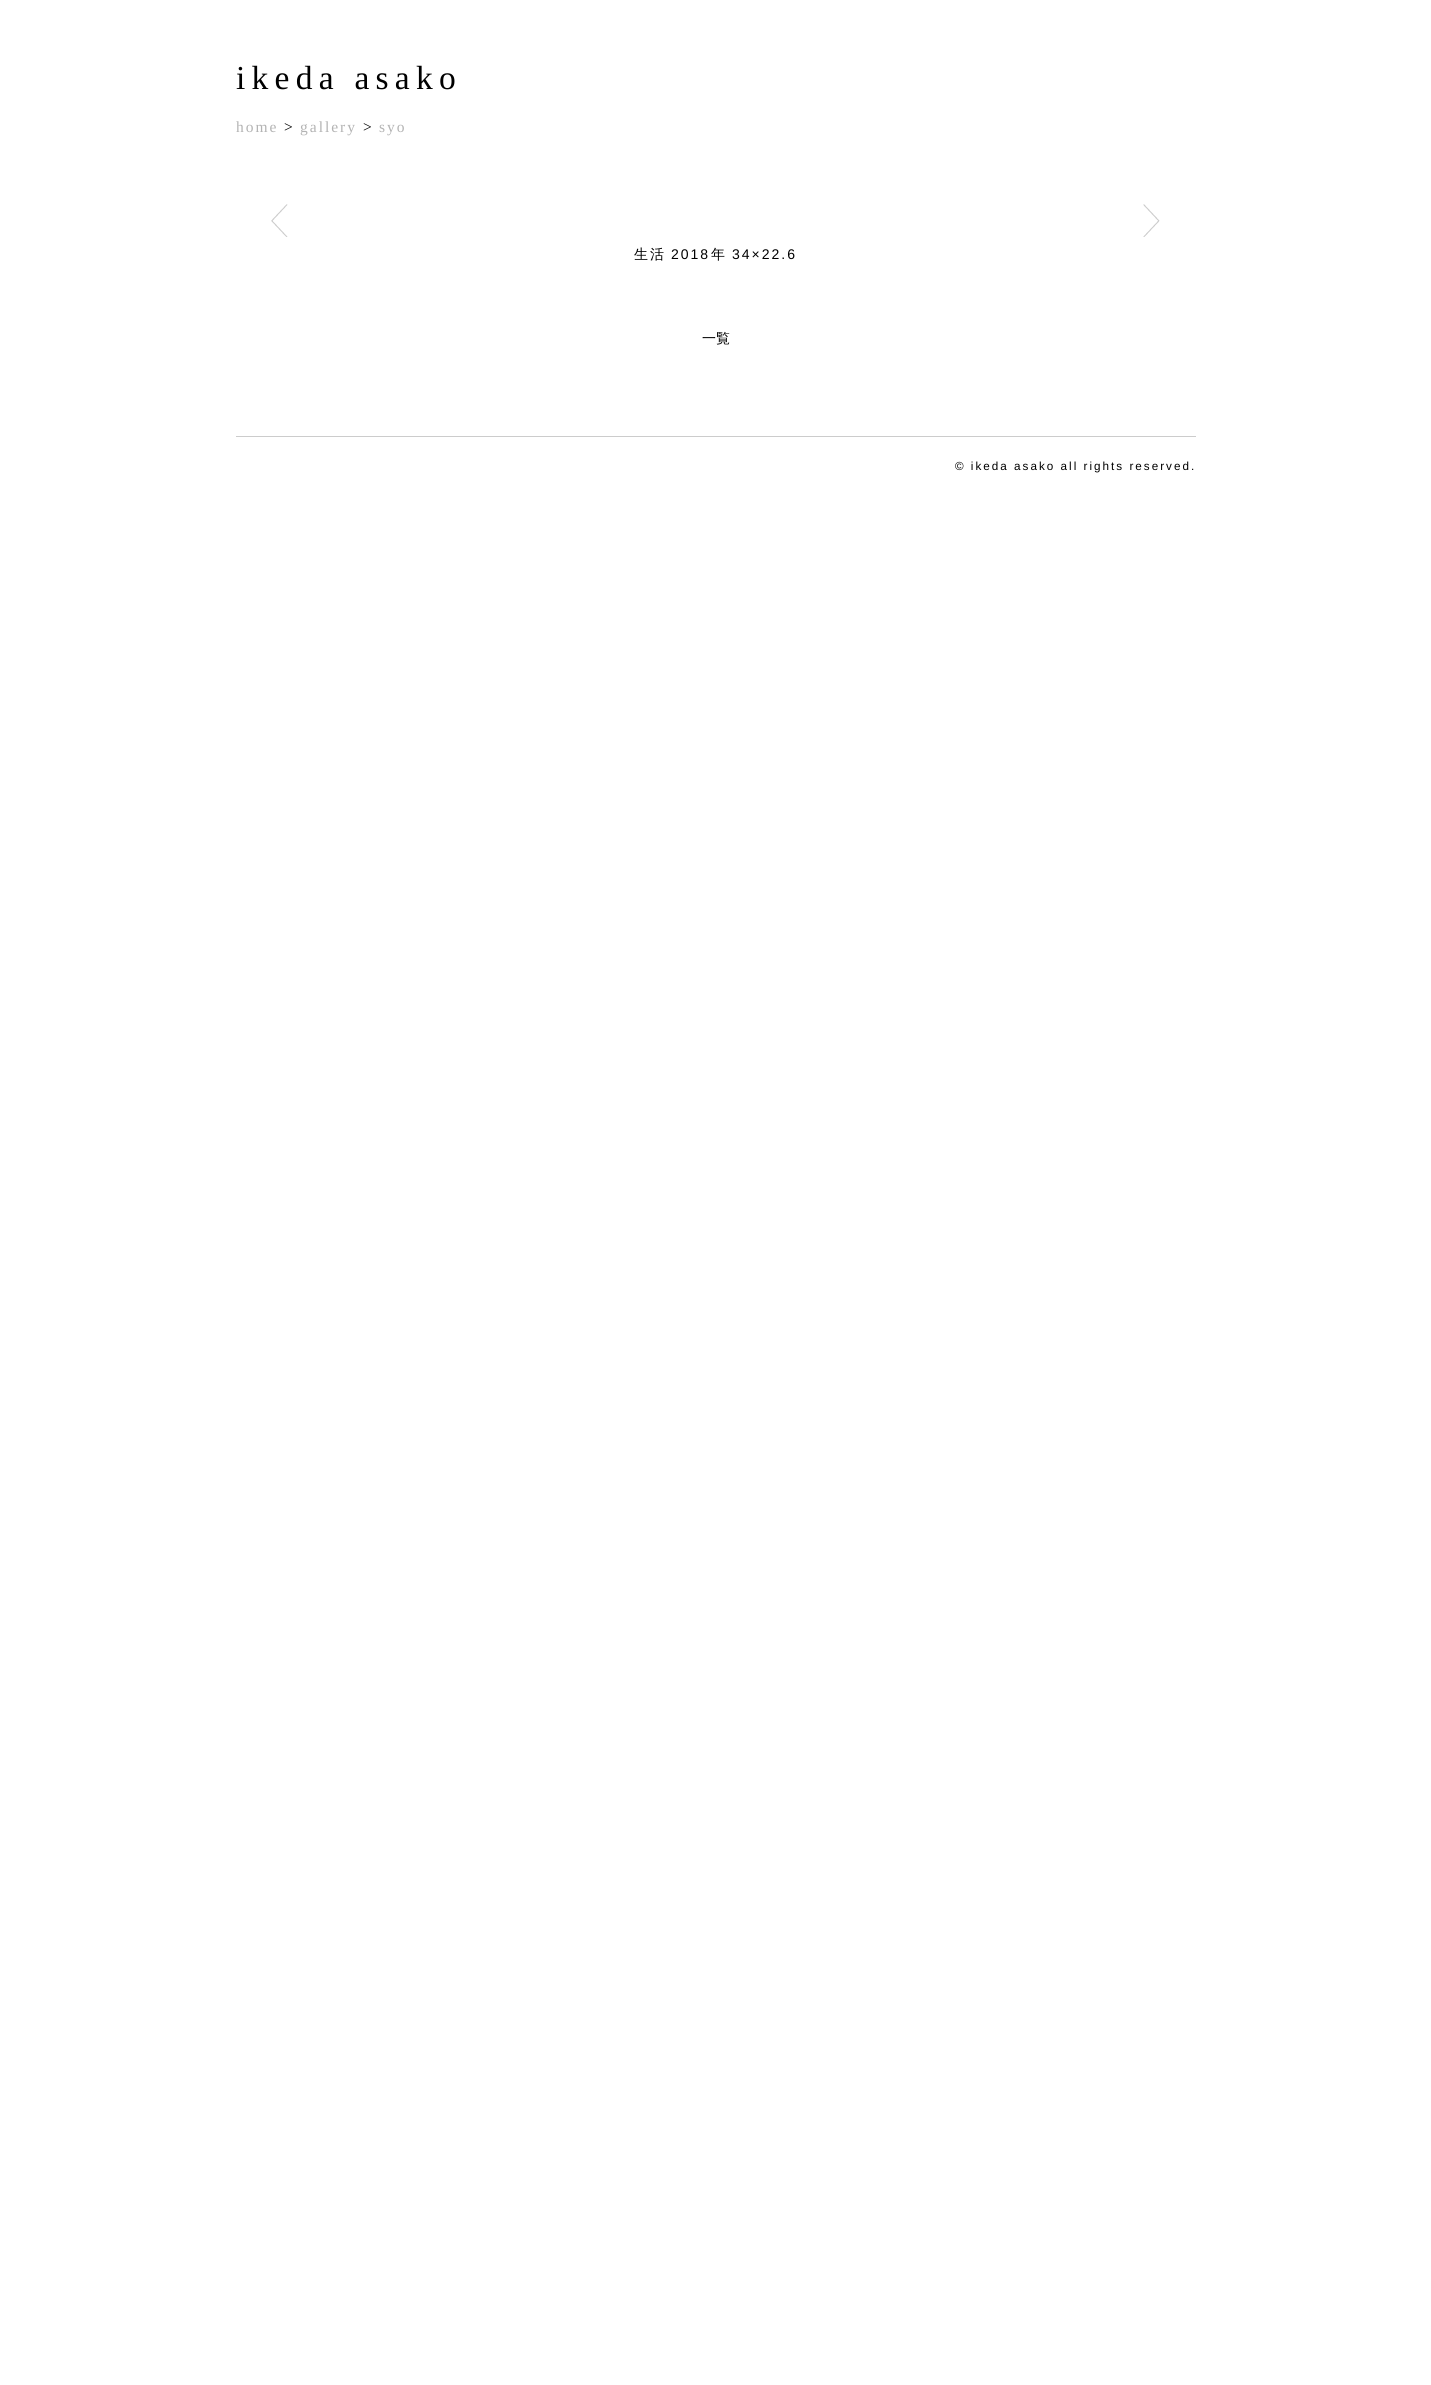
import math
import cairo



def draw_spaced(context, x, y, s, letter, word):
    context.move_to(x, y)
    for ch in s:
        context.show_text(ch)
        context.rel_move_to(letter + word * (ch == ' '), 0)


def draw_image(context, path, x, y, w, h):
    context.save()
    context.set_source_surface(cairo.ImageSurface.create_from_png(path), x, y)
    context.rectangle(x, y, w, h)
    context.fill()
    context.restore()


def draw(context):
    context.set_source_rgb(1, 1, 1)
    context.paint()
    draw_image(context, "images/1.png", 271, 204, 17, 33)
    draw_image(context, "images/2.png", 1143, 204, 17, 33)
    context.set_source_rgb(204 / 255, 204 / 255, 204 / 255)
    context.rectangle(236, 436, 960, 1)
    context.fill()
    context.select_font_face("Liberation Serif")
    context.set_font_size(33.5)
    context.set_source_rgb(0, 0, 0)
    draw_spaced(context, 236, 89, "ikeda asako", 6.25, 0)
    context.set_font_size(15.5)
    context.set_source_rgb(179 / 255, 179 / 255, 179 / 255)
    draw_spaced(context, 236, 132, "home", 2, 0)
    context.set_source_rgb(0, 0, 0)
    draw_spaced(context, 284, 132, ">", 2, 0)
    context.set_source_rgb(179 / 255, 179 / 255, 179 / 255)
    draw_spaced(context, 300, 132, "gallery", 2, 0)
    context.set_source_rgb(0, 0, 0)
    draw_spaced(context, 363, 132, ">", 2, 0)
    context.set_source_rgb(179 / 255, 179 / 255, 179 / 255)
    draw_spaced(context, 379, 132, "syo", 2, 0)
    context.select_font_face("WenQuanYi Zen Hei Medium")
    context.set_font_size(14)
    context.set_source_rgb(0, 0, 0)
    draw_spaced(context, 634, 259, "生活", 2, 0)
    context.select_font_face("Liberation Sans")
    draw_spaced(context, 671, 259, "2018", 2, 0)
    context.select_font_face("WenQuanYi Zen Hei Medium")
    draw_spaced(context, 711, 259, "年", 2, 0)
    context.select_font_face("Liberation Sans")
    draw_spaced(context, 732, 259, "34×22.6", 2, 0)
    context.select_font_face("WenQuanYi Zen Hei Medium")
    context.move_to(702, 343)
    context.show_text("一覧")
    context.select_font_face("Liberation Sans")
    context.set_font_size(11.7)
    draw_spaced(context, 955, 470, "© ikeda asako all rights reserved.", 2, 0)


surface = cairo.ImageSurface(cairo.Format.RGB24, 1431, 2385)
context = cairo.Context(surface)
options = cairo.FontOptions()
options.set_hint_metrics(cairo.HintMetrics.OFF)
options.set_hint_style(cairo.HintStyle.NONE)
context.set_font_options(options)
context.set_miter_limit(4)
draw(context)
surface.write_to_png("out.png")
